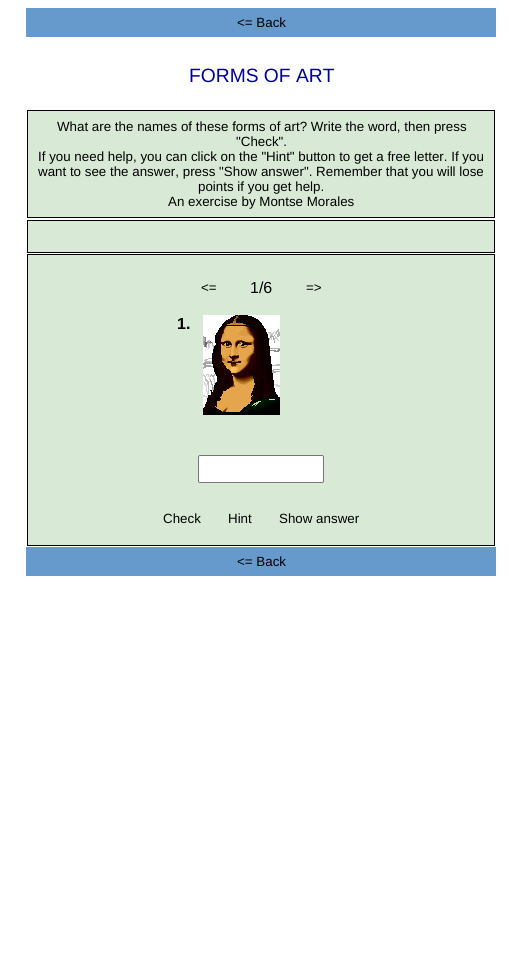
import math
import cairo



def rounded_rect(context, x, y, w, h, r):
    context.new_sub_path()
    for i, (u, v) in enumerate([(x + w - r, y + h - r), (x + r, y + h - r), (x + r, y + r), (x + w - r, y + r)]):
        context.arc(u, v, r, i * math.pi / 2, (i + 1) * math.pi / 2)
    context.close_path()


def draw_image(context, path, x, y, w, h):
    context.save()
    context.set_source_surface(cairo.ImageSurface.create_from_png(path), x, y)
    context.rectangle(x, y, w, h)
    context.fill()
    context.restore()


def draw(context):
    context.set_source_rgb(1, 1, 1)
    context.paint()
    context.set_source_rgb(102 / 255, 153 / 255, 204 / 255)
    context.rectangle(26, 8, 470, 29)
    context.fill()
    context.set_source_rgb(216 / 255, 233 / 255, 214 / 255)
    context.rectangle(27.5, 110.5, 467, 107)
    context.fill_preserve()
    context.set_source_rgb(0, 0, 0)
    context.set_line_width(1)
    context.stroke()
    context.set_source_rgb(216 / 255, 233 / 255, 214 / 255)
    context.rectangle(27.5, 220.5, 467, 32)
    context.fill_preserve()
    context.set_source_rgb(0, 0, 0)
    context.stroke()
    context.set_source_rgb(216 / 255, 233 / 255, 214 / 255)
    context.rectangle(27.5, 254.5, 467, 291)
    context.fill_preserve()
    context.set_source_rgb(0, 0, 0)
    context.stroke()
    draw_image(context, "images/1.png", 203, 315, 77, 100)
    context.set_source_rgb(1, 1, 1)
    rounded_rect(context, 198.5, 455.5, 125, 27, 1.5)
    context.fill_preserve()
    context.set_source_rgb(118 / 255, 118 / 255, 118 / 255)
    context.stroke()
    context.set_source_rgb(102 / 255, 153 / 255, 204 / 255)
    context.rectangle(26, 547, 470, 29)
    context.fill()
    context.select_font_face("Liberation Sans")
    context.set_font_size(13.35)
    context.set_source_rgb(0, 0, 0)
    context.move_to(237, 27)
    context.show_text("<= Back")
    context.set_font_size(19.25)
    context.set_source_rgb(0, 0, 153 / 255)
    context.move_to(189, 82)
    context.show_text("FORMS OF ART")
    context.set_font_size(13.35)
    context.set_source_rgb(0, 0, 0)
    context.move_to(57, 131)
    context.show_text("What are the names of these forms of art? Write the word, then press")
    context.move_to(236, 146)
    context.show_text("\"Check\".")
    context.move_to(38, 161)
    context.show_text("If you need help, you can click on the \"Hint\" button to get a free letter. If you")
    context.move_to(38, 176)
    context.show_text("want to see the answer, press \"Show answer\". Remember that you will lose")
    context.move_to(198, 191)
    context.show_text("points if you get help.")
    context.move_to(168, 206)
    context.show_text("An exercise by Montse Morales")
    context.move_to(201, 292)
    context.show_text("<=")
    context.set_font_size(16)
    context.move_to(250, 293)
    context.show_text("1/6")
    context.set_font_size(13.35)
    context.move_to(306, 292)
    context.show_text("=>")
    context.select_font_face("Liberation Sans", cairo.FontSlant.NORMAL, cairo.FontWeight.BOLD)
    context.set_font_size(16)
    context.move_to(177, 329)
    context.show_text("1.")
    context.select_font_face("Liberation Sans")
    context.set_font_size(13.35)
    context.move_to(163, 523)
    context.show_text("Check")
    context.move_to(228, 523)
    context.show_text("Hint")
    context.move_to(279, 523)
    context.show_text("Show answer")
    context.move_to(237, 566)
    context.show_text("<= Back")


surface = cairo.ImageSurface(cairo.Format.RGB24, 522, 972)
context = cairo.Context(surface)
options = cairo.FontOptions()
options.set_hint_metrics(cairo.HintMetrics.OFF)
options.set_hint_style(cairo.HintStyle.NONE)
context.set_font_options(options)
context.set_miter_limit(4)
draw(context)
surface.write_to_png("out.png")
